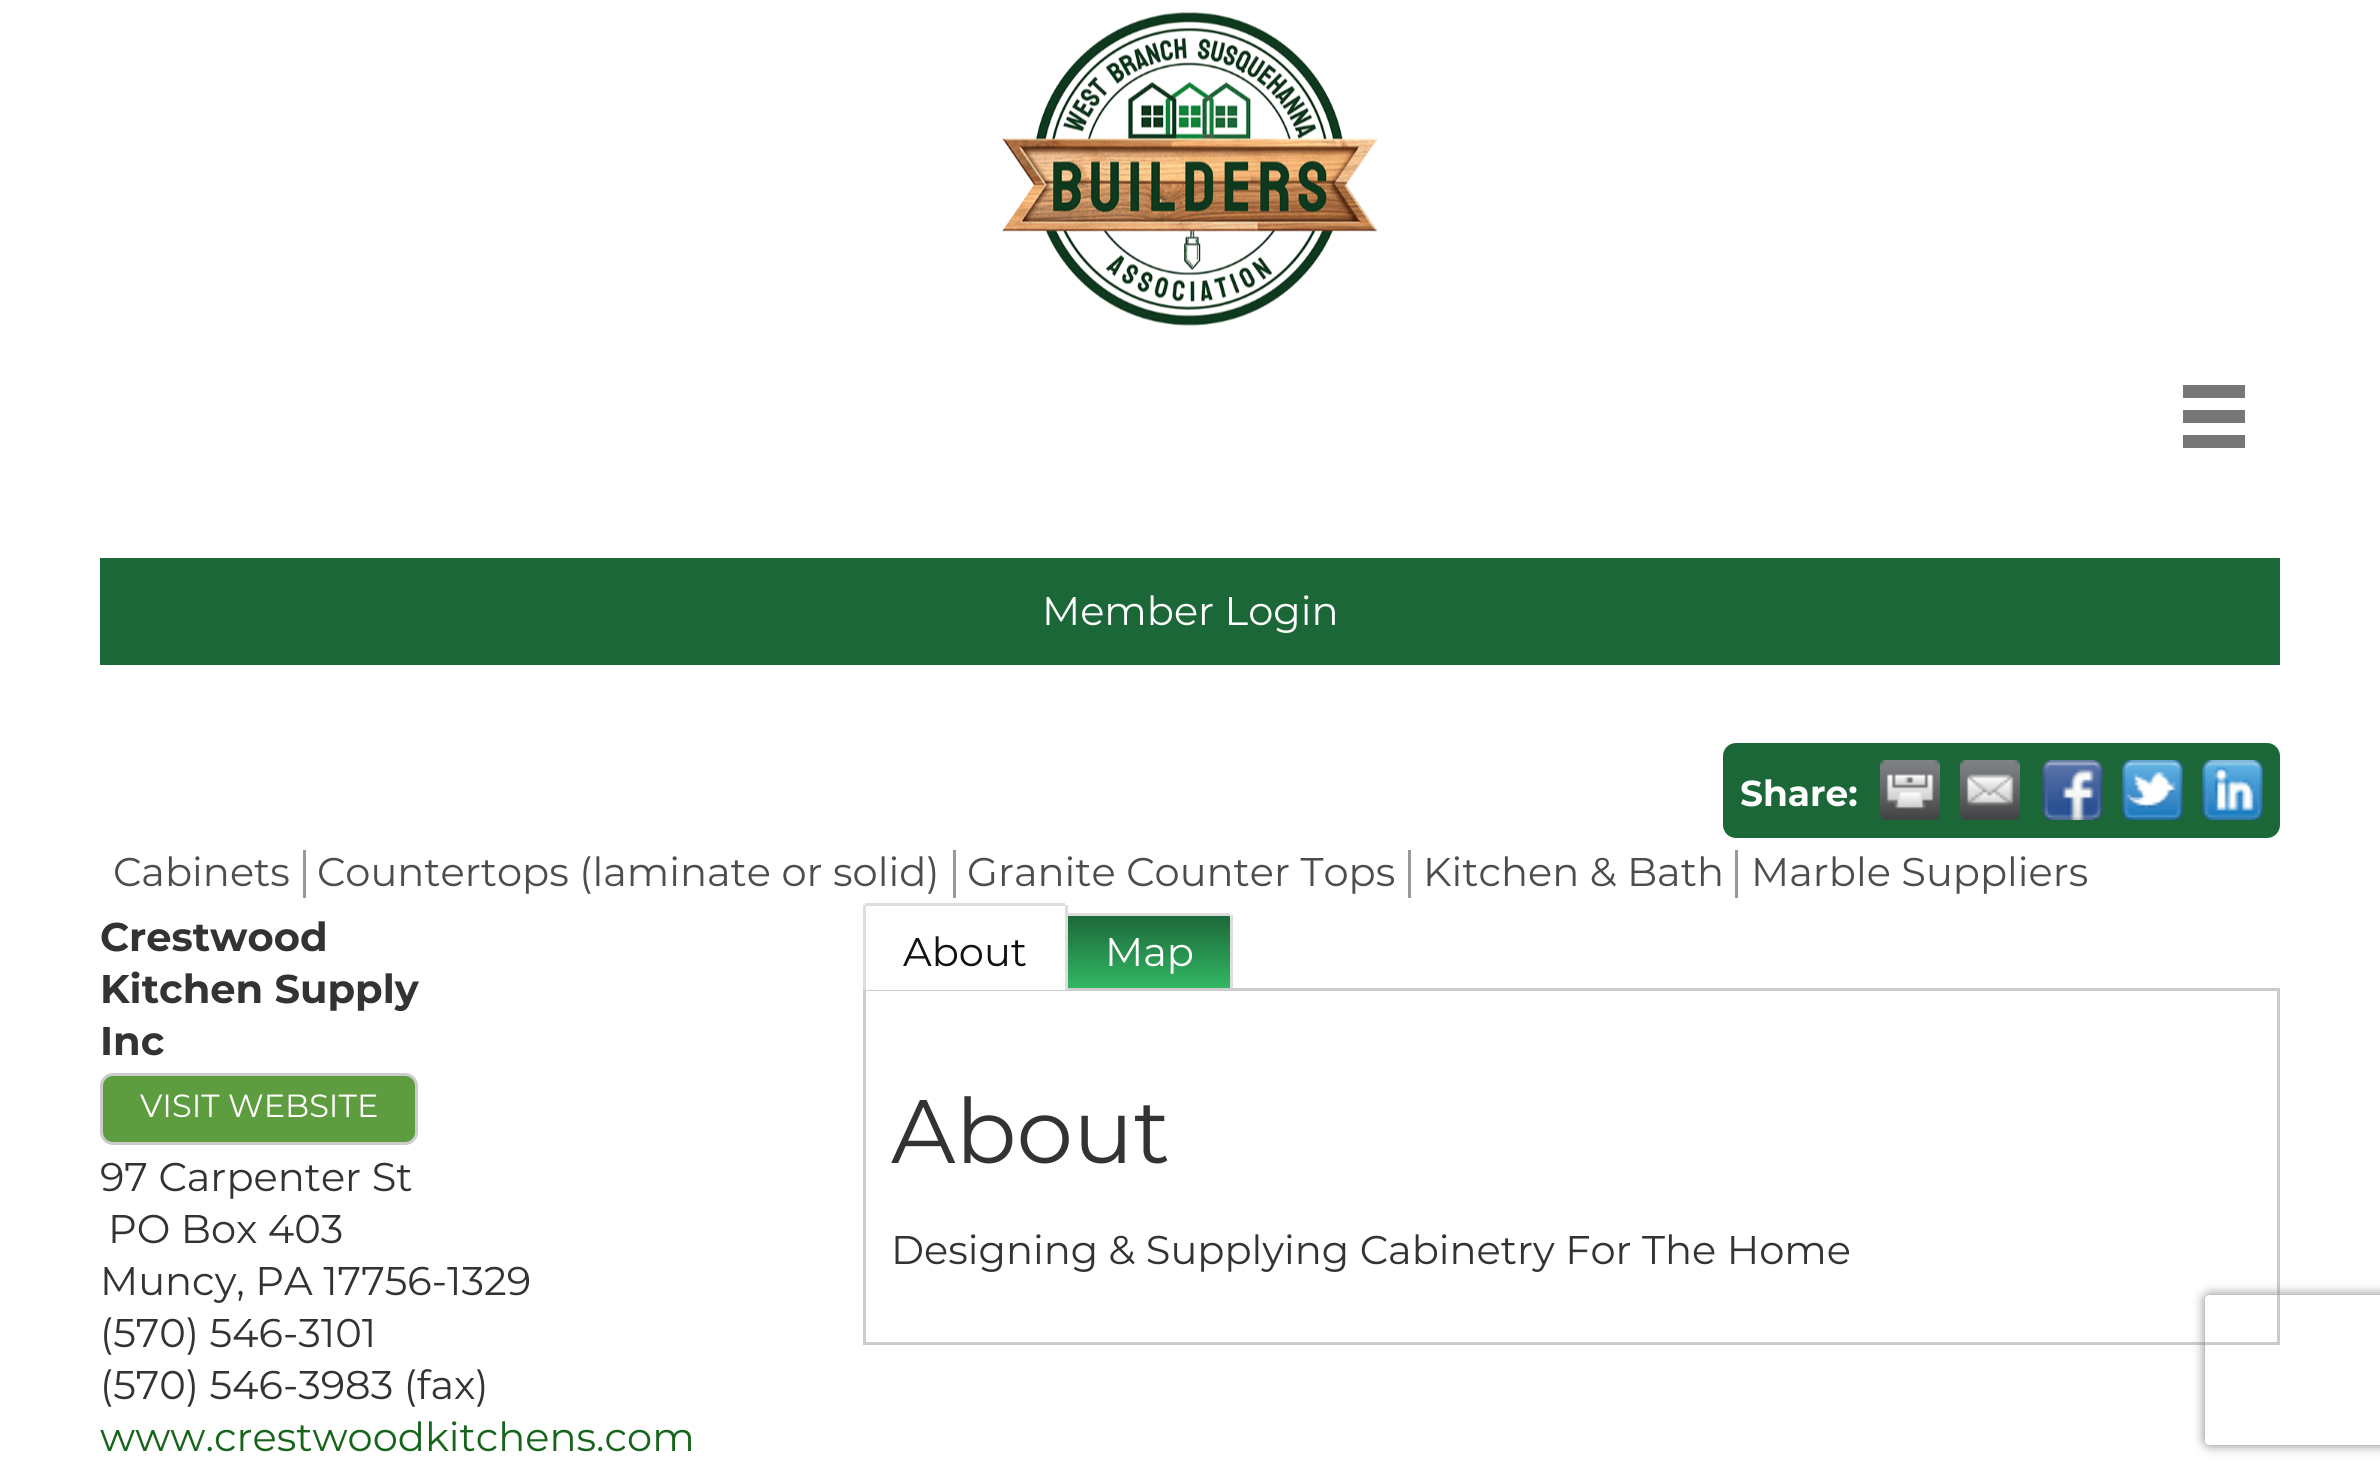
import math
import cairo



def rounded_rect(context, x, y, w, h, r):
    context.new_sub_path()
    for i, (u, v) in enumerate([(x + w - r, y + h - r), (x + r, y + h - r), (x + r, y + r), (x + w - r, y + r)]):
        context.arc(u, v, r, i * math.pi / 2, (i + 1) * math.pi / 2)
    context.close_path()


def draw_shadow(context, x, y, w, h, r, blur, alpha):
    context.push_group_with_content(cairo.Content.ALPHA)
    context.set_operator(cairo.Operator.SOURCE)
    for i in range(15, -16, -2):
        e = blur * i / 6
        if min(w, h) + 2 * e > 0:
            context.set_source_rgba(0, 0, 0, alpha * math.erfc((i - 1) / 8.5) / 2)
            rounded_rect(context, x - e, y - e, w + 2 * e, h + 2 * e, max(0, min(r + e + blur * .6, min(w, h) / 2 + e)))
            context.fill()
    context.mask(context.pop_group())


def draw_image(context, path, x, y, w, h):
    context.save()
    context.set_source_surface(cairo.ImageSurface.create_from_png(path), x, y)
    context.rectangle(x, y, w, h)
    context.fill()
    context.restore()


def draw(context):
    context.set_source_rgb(1, 1, 1)
    context.paint()
    draw_image(context, "images/1.png", 1002, 12, 376, 314)
    context.set_source_rgb(119 / 255, 119 / 255, 119 / 255)
    context.rectangle(2183, 385, 62, 13)
    context.fill()
    context.rectangle(2183, 410, 62, 13)
    context.fill()
    context.rectangle(2183, 435, 62, 13)
    context.fill()
    context.set_source_rgb(28 / 255, 103 / 255, 56 / 255)
    context.rectangle(100, 558, 2180, 107)
    context.fill()
    rounded_rect(context, 1723, 743, 557, 95, 13)
    context.fill()
    draw_image(context, "images/2.png", 1880, 760, 60, 60)
    draw_image(context, "images/3.png", 1960, 760, 60, 60)
    draw_image(context, "images/4.png", 2042, 760, 61, 60)
    draw_image(context, "images/5.png", 2122, 760, 61, 60)
    draw_image(context, "images/6.png", 2202, 760, 61, 60)
    context.set_source_rgb(153 / 255, 153 / 255, 153 / 255)
    context.rectangle(303, 850, 3, 48)
    context.fill()
    context.rectangle(953, 850, 3, 48)
    context.fill()
    context.rectangle(1408, 850, 3, 48)
    context.fill()
    context.rectangle(1735, 850, 3, 48)
    context.fill()
    context.set_source_rgb(94 / 255, 157 / 255, 63 / 255)
    rounded_rect(context, 101.5, 1074.5, 315, 69, 11.5)
    context.fill_preserve()
    context.set_source_rgb(204 / 255, 204 / 255, 204 / 255)
    context.set_line_width(3)
    context.stroke()
    context.rectangle(864.5, 989.5, 1414, 354)
    context.stroke()
    context.set_source_rgb(1, 1, 1)
    context.new_path()
    context.move_to(867.5, 905)
    context.line_to(1062.5, 905)
    context.curve_to(1064, 905, 1065, 906, 1065, 907.5)
    context.line_to(1065, 990)
    context.line_to(865, 990)
    context.line_to(865, 907.5)
    context.curve_to(865, 906, 866, 905, 867.5, 905)
    context.close_path()
    context.fill()
    context.set_source_rgb(221 / 255, 221 / 255, 221 / 255)
    context.rectangle(865, 903, 200, 3)
    context.fill()
    context.rectangle(1065, 905, 3, 85)
    context.fill()
    context.rectangle(863, 905, 3, 85)
    context.fill()
    gradient = cairo.LinearGradient(1149, 915, 1149, 988)
    gradient.add_color_stop_rgba(0, 28 / 255, 103 / 255, 56 / 255, 1)
    gradient.add_color_stop_rgba(1, 50 / 255, 183 / 255, 100 / 255, 1)
    context.set_source(gradient)
    context.new_path()
    context.move_to(1068, 915)
    context.line_to(1227.5, 915)
    context.curve_to(1229, 915, 1230, 916, 1230, 917.5)
    context.line_to(1230, 988)
    context.line_to(1068, 988)
    context.close_path()
    context.fill()
    context.set_source_rgb(221 / 255, 221 / 255, 221 / 255)
    context.rectangle(1068, 913, 162, 3)
    context.fill()
    context.rectangle(1230, 915, 3, 73)
    context.fill()
    context.save()
    context.set_fill_rule(cairo.FillRule.EVEN_ODD)
    context.new_path()
    context.move_to(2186, 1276)
    context.line_to(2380, 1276)
    context.line_to(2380, 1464)
    context.line_to(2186, 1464)
    context.close_path()
    context.move_to(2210, 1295)
    context.line_to(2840, 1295)
    context.curve_to(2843, 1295, 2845, 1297, 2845, 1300)
    context.line_to(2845, 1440)
    context.curve_to(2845, 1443, 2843, 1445, 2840, 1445)
    context.line_to(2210, 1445)
    context.curve_to(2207, 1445, 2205, 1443, 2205, 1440)
    context.line_to(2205, 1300)
    context.curve_to(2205, 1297, 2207, 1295, 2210, 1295)
    context.close_path()
    context.clip()
    context.set_source_rgb(128 / 255, 128 / 255, 128 / 255)
    draw_shadow(context, 2205, 1295, 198, 150, 5, 6, 1)
    context.restore()
    context.select_font_face("Montserrat")
    context.set_font_size(40)
    context.set_source_rgb(1, 1, 1)
    context.move_to(1042, 625)
    context.show_text("Member Login")
    context.select_font_face("Montserrat", cairo.FontSlant.NORMAL, cairo.FontWeight.BOLD)
    context.set_font_size(36)
    context.move_to(1740, 806)
    context.show_text("Share:")
    context.select_font_face("Montserrat")
    context.set_font_size(40)
    context.set_source_rgb(77 / 255, 77 / 255, 77 / 255)
    context.move_to(113, 886)
    context.show_text("Cabinets")
    context.move_to(317, 886)
    context.show_text("Countertops (laminate or solid)")
    context.move_to(967, 886)
    context.show_text("Granite Counter Tops")
    context.move_to(1423, 886)
    context.show_text("Kitchen & Bath")
    context.move_to(1751, 886)
    context.show_text("Marble Suppliers")
    context.select_font_face("Montserrat", cairo.FontSlant.NORMAL, cairo.FontWeight.BOLD)
    context.set_source_rgb(51 / 255, 51 / 255, 51 / 255)
    context.move_to(100, 951)
    context.show_text("Crestwood")
    context.move_to(100, 1003)
    context.show_text("Kitchen Supply")
    context.move_to(100, 1055)
    context.show_text("Inc")
    context.select_font_face("Montserrat")
    context.set_font_size(32)
    context.set_source_rgb(1, 1, 1)
    context.move_to(140, 1117)
    context.show_text("VISIT WEBSITE")
    context.set_font_size(40)
    context.set_source_rgb(51 / 255, 51 / 255, 51 / 255)
    context.move_to(100, 1191)
    context.show_text("97 Carpenter St")
    context.move_to(108, 1243)
    context.show_text("PO Box 403")
    context.move_to(100, 1295)
    context.show_text("Muncy, PA 17756-1329")
    context.move_to(100, 1347)
    context.show_text("(570) 546-3101")
    context.move_to(100, 1399)
    context.show_text("(570) 546-3983 (fax)")
    context.set_source_rgb(23 / 255, 101 / 255, 29 / 255)
    context.move_to(100, 1451)
    context.show_text("www.crestwoodkitchens.com")
    context.set_source_rgb(17 / 255, 17 / 255, 17 / 255)
    context.move_to(903, 966)
    context.show_text("About")
    context.set_source_rgb(1, 1, 1)
    context.move_to(1105, 966)
    context.show_text("Map")
    context.set_font_size(90)
    context.set_source_rgb(51 / 255, 51 / 255, 51 / 255)
    context.move_to(891, 1163)
    context.show_text("About")
    context.set_font_size(40)
    context.move_to(891, 1264)
    context.show_text("Designing & Supplying Cabinetry For The Home")


surface = cairo.ImageSurface(cairo.Format.RGB24, 2380, 1480)
context = cairo.Context(surface)
options = cairo.FontOptions()
options.set_hint_metrics(cairo.HintMetrics.OFF)
options.set_hint_style(cairo.HintStyle.NONE)
context.set_font_options(options)
context.set_miter_limit(4)
draw(context)
surface.write_to_png("out.png")
